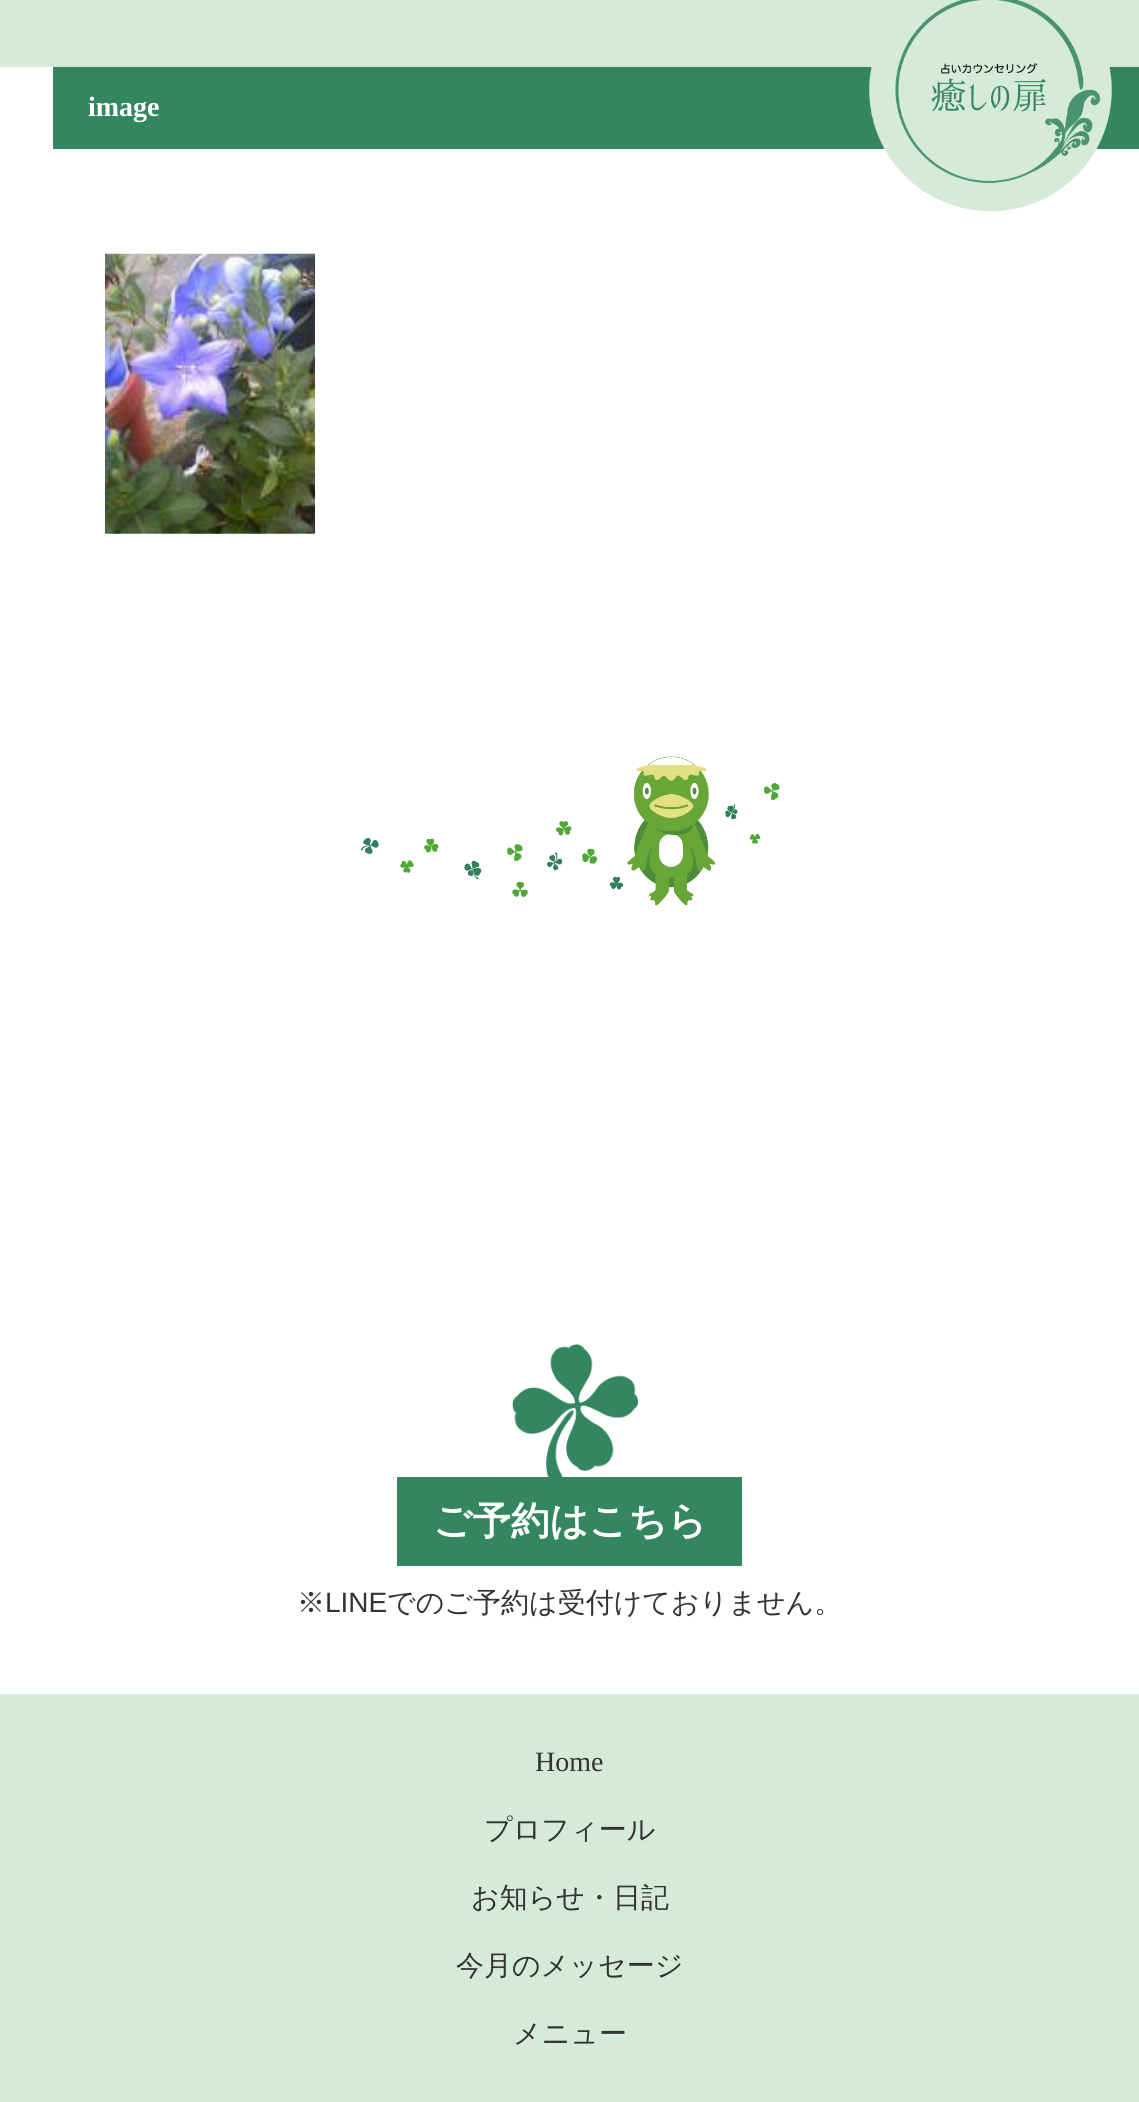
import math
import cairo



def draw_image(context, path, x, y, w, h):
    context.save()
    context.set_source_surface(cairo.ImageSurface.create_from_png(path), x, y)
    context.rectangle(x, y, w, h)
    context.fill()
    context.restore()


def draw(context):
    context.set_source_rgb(1, 1, 1)
    context.paint()
    context.set_source_rgb(213 / 255, 234 / 255, 216 / 255)
    context.rectangle(0, 0, 1139, 67)
    context.fill()
    context.set_source_rgb(51 / 255, 134 / 255, 95 / 255)
    context.rectangle(1096, 67, 43, 82)
    context.fill()
    context.rectangle(53, 67, 832, 82)
    context.fill()
    draw_image(context, "images/1.png", 869, 0, 243, 212)
    draw_image(context, "images/2.png", 105, 253, 210, 281)
    draw_image(context, "images/3.png", 361, 756, 419, 150)
    draw_image(context, "images/4.png", 512, 1344, 126, 133)
    context.rectangle(397, 1477, 345, 89)
    context.fill()
    context.set_source_rgb(213 / 255, 234 / 255, 216 / 255)
    context.rectangle(0, 1694, 1139, 408)
    context.fill()
    context.select_font_face("Liberation Serif", cairo.FontSlant.NORMAL, cairo.FontWeight.BOLD)
    context.set_font_size(28)
    context.set_source_rgb(1, 1, 1)
    context.move_to(88, 116)
    context.show_text("image")
    context.select_font_face("WenQuanYi Zen Hei", cairo.FontSlant.NORMAL, cairo.FontWeight.BOLD)
    context.set_font_size(38.5)
    context.move_to(433, 1534)
    context.show_text("ご予約はこちら")
    context.select_font_face("WenQuanYi Zen Hei Medium")
    context.set_font_size(28)
    context.set_source_rgb(51 / 255, 51 / 255, 51 / 255)
    context.move_to(297, 1612)
    context.show_text("※")
    context.select_font_face("Liberation Sans")
    context.move_to(325, 1612)
    context.show_text("LINE")
    context.select_font_face("WenQuanYi Zen Hei Medium")
    context.move_to(387, 1612)
    context.show_text("でのご予約は受付けておりません。")
    context.select_font_face("Liberation Serif")
    context.move_to(535, 1771)
    context.show_text("Home")
    context.select_font_face("WenQuanYi Zen Hei Medium")
    context.move_to(484, 1839)
    context.show_text("プロフィール")
    context.move_to(471, 1907)
    context.show_text("お知らせ・日記")
    context.move_to(456, 1975)
    context.show_text("今月のメッセージ")
    context.move_to(513, 2043)
    context.show_text("メニュー")


surface = cairo.ImageSurface(cairo.Format.RGB24, 1139, 2102)
context = cairo.Context(surface)
options = cairo.FontOptions()
options.set_hint_metrics(cairo.HintMetrics.OFF)
options.set_hint_style(cairo.HintStyle.NONE)
context.set_font_options(options)
context.set_miter_limit(4)
draw(context)
surface.write_to_png("out.png")
